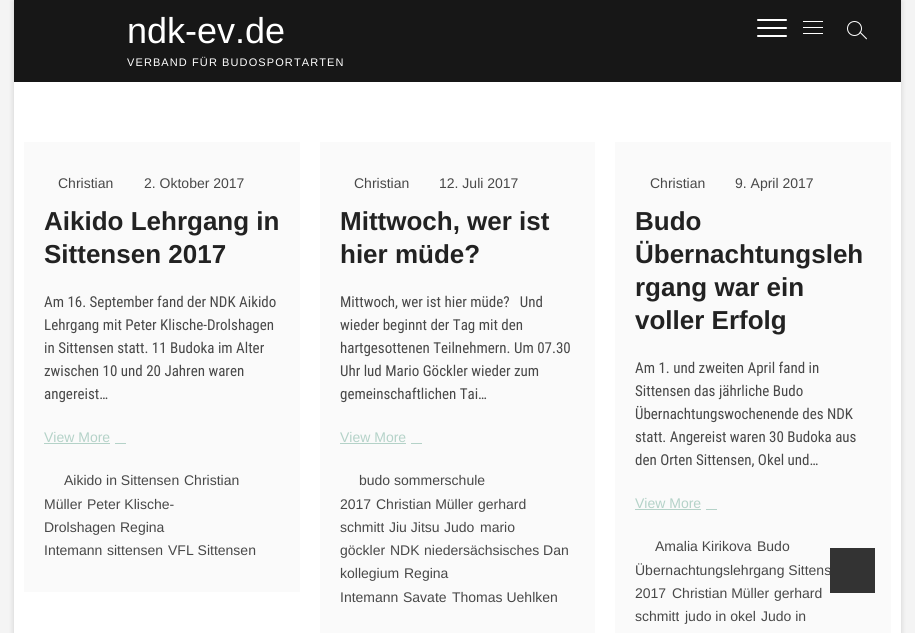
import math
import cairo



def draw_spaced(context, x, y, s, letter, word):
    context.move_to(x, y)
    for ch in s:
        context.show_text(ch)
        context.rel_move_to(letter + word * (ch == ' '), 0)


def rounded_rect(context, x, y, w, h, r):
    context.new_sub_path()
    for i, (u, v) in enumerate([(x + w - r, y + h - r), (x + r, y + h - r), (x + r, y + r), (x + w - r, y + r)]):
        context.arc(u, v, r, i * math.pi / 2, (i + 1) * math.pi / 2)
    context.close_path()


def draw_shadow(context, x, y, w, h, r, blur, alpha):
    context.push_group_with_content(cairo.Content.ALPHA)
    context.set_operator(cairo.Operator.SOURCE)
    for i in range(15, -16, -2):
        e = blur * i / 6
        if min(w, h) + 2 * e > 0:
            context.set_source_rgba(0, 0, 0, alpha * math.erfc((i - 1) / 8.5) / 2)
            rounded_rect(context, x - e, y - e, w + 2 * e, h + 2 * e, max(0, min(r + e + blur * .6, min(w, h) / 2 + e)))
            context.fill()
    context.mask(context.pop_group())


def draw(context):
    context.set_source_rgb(244 / 255, 244 / 255, 244 / 255)
    context.paint()
    context.set_source_rgb(0, 0, 0)
    draw_shadow(context, 14, 1, 887, 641, 0, 3, 0.15)
    context.set_source_rgb(1, 1, 1)
    context.rectangle(14, 82, 887, 551)
    context.fill()
    context.set_source_rgb(23 / 255, 23 / 255, 23 / 255)
    context.rectangle(14, 0, 887, 82)
    context.fill()
    context.set_source_rgb(1, 1, 1)
    rounded_rect(context, 757, 27, 30, 2, 1)
    context.fill()
    rounded_rect(context, 757, 19, 30, 2, 1)
    context.fill()
    rounded_rect(context, 757, 35, 30, 2, 1)
    context.fill()
    context.rectangle(803, 27, 20, 1)
    context.fill()
    context.rectangle(803, 21, 20, 1)
    context.fill()
    context.rectangle(803, 33, 20, 1)
    context.fill()
    context.arc(854.5, 28.5, 7, 0, 2 * math.pi)
    context.set_line_width(1)
    context.stroke()
    context.new_path()
    context.move_to(859.5, 32.5)
    context.line_to(860, 31.5)
    context.line_to(867, 38.5)
    context.line_to(866.5, 39.5)
    context.close_path()
    context.fill()
    context.set_source_rgb(250 / 255, 250 / 255, 250 / 255)
    context.rectangle(24, 142, 276, 450)
    context.fill()
    context.set_source_rgb(180 / 255, 210 / 255, 200 / 255)
    context.rectangle(44, 443, 66, 1)
    context.fill()
    context.rectangle(115, 443, 11, 1)
    context.fill()
    context.set_source_rgb(250 / 255, 250 / 255, 250 / 255)
    context.rectangle(320, 142, 275, 491)
    context.fill()
    context.set_source_rgb(180 / 255, 210 / 255, 200 / 255)
    context.rectangle(340, 443, 66, 1)
    context.fill()
    context.rectangle(411, 443, 11, 1)
    context.fill()
    context.set_source_rgb(250 / 255, 250 / 255, 250 / 255)
    context.rectangle(615, 142, 276, 491)
    context.fill()
    context.set_source_rgb(180 / 255, 210 / 255, 200 / 255)
    context.rectangle(635, 509, 66, 1)
    context.fill()
    context.rectangle(706, 509, 11, 1)
    context.fill()
    context.select_font_face("Liberation Sans")
    context.set_font_size(36)
    context.set_source_rgb(1, 1, 1)
    context.move_to(127, 43)
    context.show_text("ndk-ev.de")
    context.set_font_size(11)
    draw_spaced(context, 127, 66, "VERBAND FÜR BUDOSPORTARTEN", 1.1, 0)
    context.set_font_size(14)
    context.set_source_rgb(72 / 255, 72 / 255, 72 / 255)
    context.move_to(58, 188)
    context.show_text("Christian")
    context.move_to(144, 188)
    context.show_text("2. Oktober 2017")
    context.select_font_face("Liberation Sans", cairo.FontSlant.NORMAL, cairo.FontWeight.BOLD)
    context.set_font_size(26)
    context.set_source_rgb(34 / 255, 34 / 255, 34 / 255)
    context.move_to(44, 230)
    context.show_text("Aikido Lehrgang in")
    context.move_to(44, 263)
    context.show_text("Sittensen 2017")
    context.select_font_face("Roboto Condensed")
    context.set_font_size(15)
    context.set_source_rgb(72 / 255, 72 / 255, 72 / 255)
    context.move_to(44, 307)
    context.show_text("Am 16. September fand der NDK Aikido")
    context.move_to(44, 330)
    context.show_text("Lehrgang mit Peter Klische-Drolshagen")
    context.move_to(44, 353)
    context.show_text("in Sittensen statt. 11 Budoka im Alter")
    context.move_to(44, 376)
    context.show_text("zwischen 10 und 20 Jahren waren")
    context.move_to(44, 399)
    context.show_text("angereist…")
    context.select_font_face("Liberation Sans")
    context.set_font_size(14)
    context.set_source_rgb(180 / 255, 210 / 255, 200 / 255)
    context.move_to(44, 442)
    context.show_text("View More")
    context.set_source_rgb(72 / 255, 72 / 255, 72 / 255)
    context.move_to(64, 485)
    context.show_text("Aikido in Sittensen")
    context.move_to(184, 485)
    context.show_text("Christian")
    context.move_to(44, 509)
    context.show_text("Müller")
    context.move_to(87, 509)
    context.show_text("Peter Klische-")
    context.move_to(44, 532)
    context.show_text("Drolshagen")
    context.move_to(120, 532)
    context.show_text("Regina")
    context.move_to(44, 555)
    context.show_text("Intemann")
    context.move_to(107, 555)
    context.show_text("sittensen")
    context.move_to(168, 555)
    context.show_text("VFL Sittensen")
    context.move_to(354, 188)
    context.show_text("Christian")
    context.move_to(439, 188)
    context.show_text("12. Juli 2017")
    context.select_font_face("Liberation Sans", cairo.FontSlant.NORMAL, cairo.FontWeight.BOLD)
    context.set_font_size(26)
    context.set_source_rgb(34 / 255, 34 / 255, 34 / 255)
    context.move_to(340, 230)
    context.show_text("Mittwoch, wer ist")
    context.move_to(340, 263)
    context.show_text("hier müde?")
    context.select_font_face("Roboto Condensed")
    context.set_font_size(15)
    context.set_source_rgb(72 / 255, 72 / 255, 72 / 255)
    context.move_to(340, 307)
    context.show_text("Mittwoch, wer ist hier müde?   Und")
    context.move_to(340, 330)
    context.show_text("wieder beginnt der Tag mit den")
    context.move_to(340, 353)
    context.show_text("hartgesottenen Teilnehmern. Um 07.30")
    context.move_to(340, 376)
    context.show_text("Uhr lud Mario Göckler wieder zum")
    context.move_to(340, 399)
    context.show_text("gemeinschaftlichen Tai…")
    context.select_font_face("Liberation Sans")
    context.set_font_size(14)
    context.set_source_rgb(180 / 255, 210 / 255, 200 / 255)
    context.move_to(340, 442)
    context.show_text("View More")
    context.set_source_rgb(72 / 255, 72 / 255, 72 / 255)
    context.move_to(359, 485)
    context.show_text("budo sommerschule")
    context.move_to(340, 509)
    context.show_text("2017")
    context.move_to(376, 509)
    context.show_text("Christian Müller")
    context.move_to(478, 509)
    context.show_text("gerhard")
    context.move_to(340, 532)
    context.show_text("schmitt")
    context.move_to(389, 532)
    context.show_text("Jiu Jitsu")
    context.move_to(444, 532)
    context.show_text("Judo")
    context.move_to(480, 532)
    context.show_text("mario")
    context.move_to(340, 555)
    context.show_text("göckler")
    context.move_to(390, 555)
    context.show_text("NDK")
    context.move_to(424, 555)
    context.show_text("niedersächsisches Dan")
    context.move_to(340, 578)
    context.show_text("kollegium")
    context.move_to(404, 578)
    context.show_text("Regina")
    context.move_to(340, 602)
    context.show_text("Intemann")
    context.move_to(403, 602)
    context.show_text("Savate")
    context.move_to(452, 602)
    context.show_text("Thomas Uehlken")
    context.move_to(650, 188)
    context.show_text("Christian")
    context.move_to(735, 188)
    context.show_text("9. April 2017")
    context.select_font_face("Liberation Sans", cairo.FontSlant.NORMAL, cairo.FontWeight.BOLD)
    context.set_font_size(26)
    context.set_source_rgb(34 / 255, 34 / 255, 34 / 255)
    context.move_to(635, 230)
    context.show_text("Budo")
    context.move_to(635, 263)
    context.show_text("Übernachtungsleh")
    context.move_to(635, 296)
    context.show_text("rgang war ein")
    context.move_to(635, 329)
    context.show_text("voller Erfolg")
    context.select_font_face("Roboto Condensed")
    context.set_font_size(15)
    context.set_source_rgb(72 / 255, 72 / 255, 72 / 255)
    context.move_to(635, 373)
    context.show_text("Am 1. und zweiten April fand in")
    context.move_to(635, 396)
    context.show_text("Sittensen das jährliche Budo")
    context.move_to(635, 419)
    context.show_text("Übernachtungswochenende des NDK")
    context.move_to(635, 442)
    context.show_text("statt. Angereist waren 30 Budoka aus")
    context.move_to(635, 465)
    context.show_text("den Orten Sittensen, Okel und…")
    context.select_font_face("Liberation Sans")
    context.set_font_size(14)
    context.set_source_rgb(180 / 255, 210 / 255, 200 / 255)
    context.move_to(635, 508)
    context.show_text("View More")
    context.set_source_rgb(72 / 255, 72 / 255, 72 / 255)
    context.move_to(655, 551)
    context.show_text("Amalia Kirikova")
    context.move_to(757, 551)
    context.show_text("Budo")
    context.move_to(635, 575)
    context.show_text("Übernachtungslehrgang Sittens")
    context.move_to(635, 598)
    context.show_text("2017")
    context.move_to(672, 598)
    context.show_text("Christian Müller")
    context.move_to(774, 598)
    context.show_text("gerhard")
    context.move_to(635, 621)
    context.show_text("schmitt")
    context.move_to(685, 621)
    context.show_text("judo in okel")
    context.move_to(761, 621)
    context.show_text("Judo in")
    context.set_source_rgb(51 / 255, 51 / 255, 51 / 255)
    context.rectangle(830, 548, 45, 45)
    context.fill()


surface = cairo.ImageSurface(cairo.Format.RGB24, 915, 633)
context = cairo.Context(surface)
options = cairo.FontOptions()
options.set_hint_metrics(cairo.HintMetrics.OFF)
options.set_hint_style(cairo.HintStyle.NONE)
context.set_font_options(options)
context.set_miter_limit(4)
draw(context)
surface.write_to_png("out.png")
